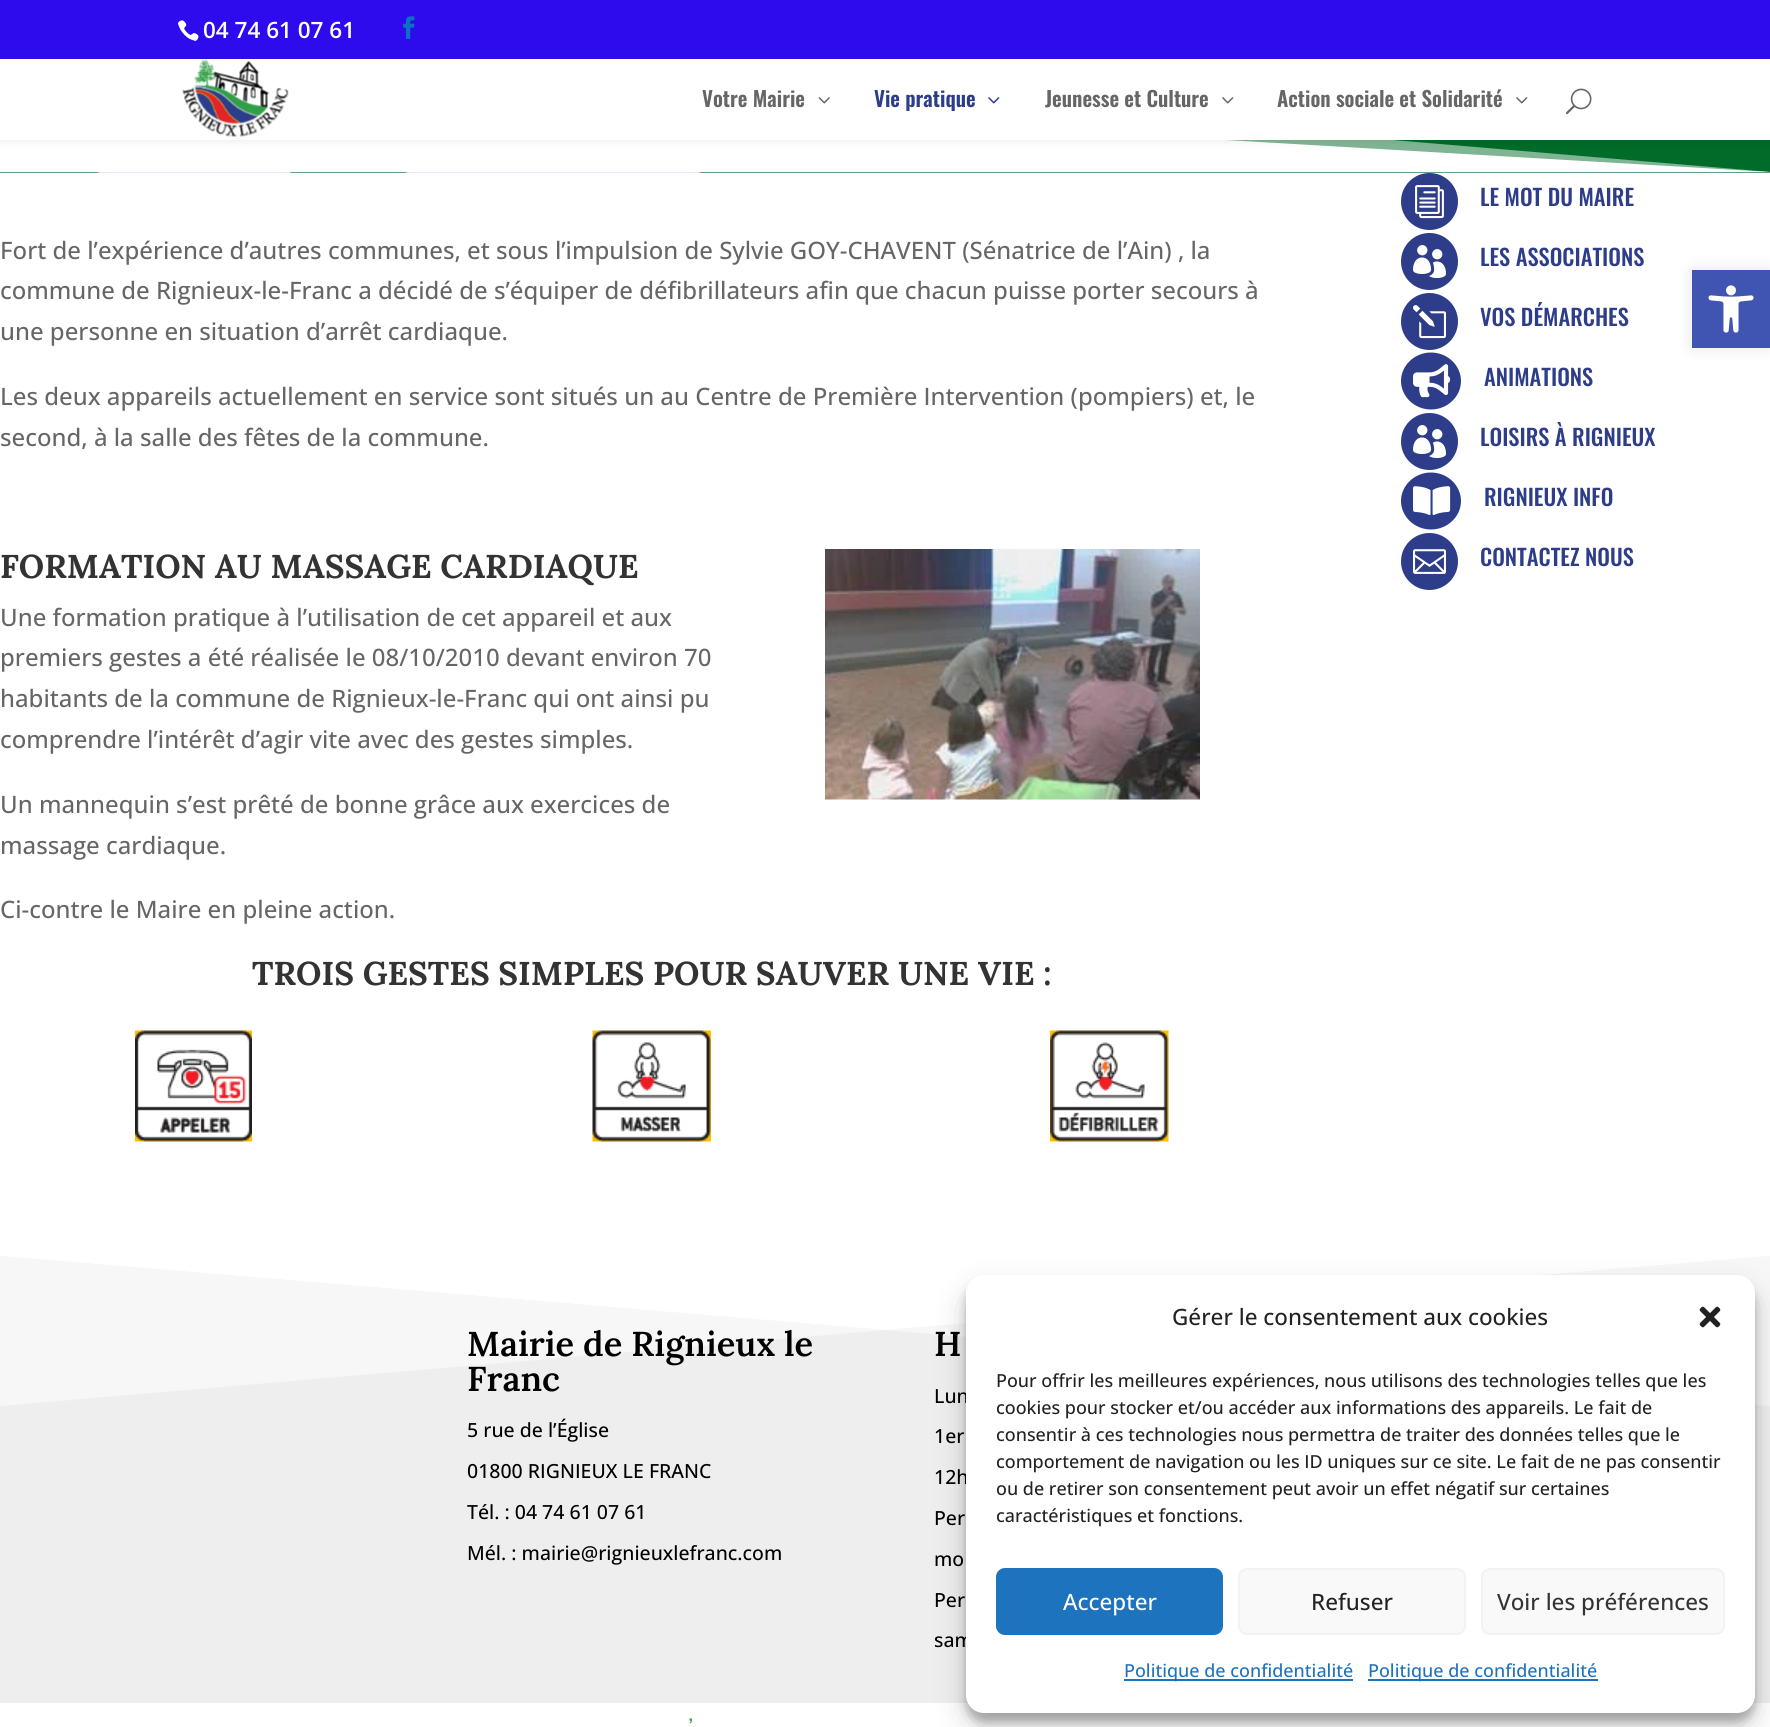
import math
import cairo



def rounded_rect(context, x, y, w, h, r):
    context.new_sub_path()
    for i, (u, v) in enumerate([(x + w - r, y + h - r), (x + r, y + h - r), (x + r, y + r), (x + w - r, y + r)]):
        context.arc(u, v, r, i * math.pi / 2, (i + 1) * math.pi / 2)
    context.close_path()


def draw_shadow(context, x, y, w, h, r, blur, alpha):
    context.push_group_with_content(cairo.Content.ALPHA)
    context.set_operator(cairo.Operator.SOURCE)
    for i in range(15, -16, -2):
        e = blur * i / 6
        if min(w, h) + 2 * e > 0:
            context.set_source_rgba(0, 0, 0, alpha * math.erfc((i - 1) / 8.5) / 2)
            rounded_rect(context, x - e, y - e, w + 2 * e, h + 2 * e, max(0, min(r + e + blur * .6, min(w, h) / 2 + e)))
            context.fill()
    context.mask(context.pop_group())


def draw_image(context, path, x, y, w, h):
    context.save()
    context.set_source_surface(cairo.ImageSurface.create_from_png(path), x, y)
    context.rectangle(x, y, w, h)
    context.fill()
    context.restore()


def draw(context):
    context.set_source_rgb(1, 1, 1)
    context.paint()
    context.set_source_rgb(213 / 255, 207 / 255, 244 / 255)
    context.rectangle(0, 172, 1770, 1)
    context.fill()
    draw_image(context, "images/8.png", 0, 140, 1770, 33)
    context.set_source_rgba(1, 1, 1, 0.5)
    context.new_path()
    context.move_to(0, 22)
    context.line_to(0, 172)
    context.line_to(1770, 172)
    context.close_path()
    context.fill()
    context.set_source_rgb(1, 1, 1)
    context.new_path()
    context.move_to(0, 68)
    context.line_to(0, 172)
    context.line_to(1770, 172)
    context.close_path()
    context.fill()
    context.set_source_rgb(0, 0, 0)
    draw_shadow(context, 0, 59, 1770, 81, 0, 5, 0.1)
    context.set_source_rgb(45 / 255, 11 / 255, 237 / 255)
    context.rectangle(0, 0, 1770, 59)
    context.fill()
    draw_image(context, "images/1.png", 177, 20, 22, 21)
    draw_image(context, "images/2.png", 403, 16, 12, 23)
    context.set_source_rgb(1, 1, 1)
    context.rectangle(0, 59, 1770, 81)
    context.fill()
    draw_image(context, "images/3.png", 182, 59, 107, 78)
    draw_image(context, "images/4.png", 818, 97, 12, 7)
    draw_image(context, "images/5.png", 988, 97, 12, 7)
    draw_image(context, "images/6.png", 1222, 97, 12, 7)
    draw_image(context, "images/6.png", 1516, 97, 12, 7)
    draw_image(context, "images/7.png", 1565, 88, 27, 27)
    draw_image(context, "images/9.png", 825, 549, 375, 251)
    draw_image(context, "images/10.png", 135, 1030, 117, 112)
    draw_image(context, "images/11.png", 592, 1030, 119, 112)
    draw_image(context, "images/12.png", 1050, 1030, 119, 112)
    context.set_source_rgb(45 / 255, 61 / 255, 138 / 255)
    context.arc(1429.5, 201.5, 28.5, 0, 2 * math.pi)
    context.fill()
    draw_image(context, "images/13.png", 1415, 185, 29, 34)
    context.arc(1429.5, 261.5, 28.5, 0, 2 * math.pi)
    context.fill()
    draw_image(context, "images/14.png", 1413, 245, 33, 33)
    context.arc(1429.5, 321.5, 28.5, 0, 2 * math.pi)
    context.fill()
    draw_image(context, "images/15.png", 1413, 305, 33, 34)
    context.new_path()
    context.move_to(1431, 352.5)
    context.curve_to(1447.5, 352.5, 1461, 365.5, 1461, 381)
    context.curve_to(1461, 396.5, 1447.5, 409.5, 1431, 409.5)
    context.curve_to(1414.5, 409.5, 1401, 396.5, 1401, 381)
    context.curve_to(1401, 365.5, 1414.5, 352.5, 1431, 352.5)
    context.close_path()
    context.fill()
    draw_image(context, "images/16.png", 1413, 364, 38, 34)
    context.arc(1429.5, 441.5, 28.5, 0, 2 * math.pi)
    context.fill()
    draw_image(context, "images/14.png", 1413, 425, 33, 33)
    context.new_path()
    context.move_to(1431, 472.5)
    context.curve_to(1447.5, 472.5, 1461, 485.5, 1461, 501)
    context.curve_to(1461, 516.5, 1447.5, 529.5, 1431, 529.5)
    context.curve_to(1414.5, 529.5, 1401, 516.5, 1401, 501)
    context.curve_to(1401, 485.5, 1414.5, 472.5, 1431, 472.5)
    context.close_path()
    context.fill()
    draw_image(context, "images/17.png", 1413, 486, 38, 29)
    context.arc(1429.5, 561.5, 28.5, 0, 2 * math.pi)
    context.fill()
    draw_image(context, "images/18.png", 1413, 549, 33, 25)
    context.set_source_rgb(238 / 255, 238 / 255, 238 / 255)
    context.rectangle(0, 1256, 1770, 447)
    context.fill()
    context.set_source_rgb(247 / 255, 247 / 255, 247 / 255)
    context.new_path()
    context.move_to(1770, 1256)
    context.line_to(885, 1330)
    context.line_to(0, 1256)
    context.line_to(0, 1406)
    context.line_to(885, 1330)
    context.line_to(1770, 1406)
    context.close_path()
    context.fill()
    context.set_source_rgb(1, 1, 1)
    context.new_path()
    context.move_to(1770, 1256)
    context.line_to(0, 1256)
    context.line_to(885, 1330)
    context.close_path()
    context.fill()
    context.set_source_rgb(0, 0, 0)
    draw_shadow(context, 1692, 270, 78, 78, 0, 7.5, 0.1)
    context.set_source_rgb(64 / 255, 84 / 255, 178 / 255)
    context.rectangle(1692, 270, 78, 78)
    context.fill()
    draw_image(context, "images/19.png", 1708, 285, 46, 48)
    context.set_source_rgb(0, 0, 0)
    draw_shadow(context, 966, 1284, 789, 438, 18, 4.5, 0.23)
    draw_shadow(context, 966, 1290, 789, 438, 18, 15, 0.19)
    context.select_font_face("Open Sans SemiBold")
    context.set_font_size(22.5)
    context.set_source_rgb(1, 1, 1)
    context.move_to(203, 38)
    context.show_text("04 74 61 07 61")
    context.select_font_face("Oswald SemiBold")
    context.set_font_size(21)
    context.set_source_rgb(102 / 255, 102 / 255, 102 / 255)
    context.move_to(702, 107)
    context.show_text("Votre Mairie")
    context.set_source_rgb(45 / 255, 61 / 255, 138 / 255)
    context.move_to(874, 107)
    context.show_text("Vie pratique")
    context.set_source_rgb(102 / 255, 102 / 255, 102 / 255)
    context.move_to(1045, 107)
    context.show_text("Jeunesse et Culture")
    context.move_to(1277, 107)
    context.show_text("Action sociale et Solidarité")
    context.select_font_face("Open Sans Medium")
    context.set_font_size(24)
    context.move_to(0, 259)
    context.show_text("Fort de l’expérience d’autres communes, et sous l’impulsion de Sylvie GOY-CHAVENT (Sénatrice de l’Ain) , la")
    context.move_to(0, 299)
    context.show_text("commune de Rignieux-le-Franc a décidé de s’équiper de défibrillateurs afin que chacun puisse porter secours à")
    context.move_to(0, 340)
    context.show_text("une personne en situation d’arrêt cardiaque.")
    context.move_to(0, 405)
    context.show_text("Les deux appareils actuellement en service sont situés un au Centre de Première Intervention (pompiers) et, le")
    context.move_to(0, 446)
    context.show_text("second, à la salle des fêtes de la commune.")
    context.select_font_face("Lora", cairo.FontSlant.NORMAL, cairo.FontWeight.BOLD)
    context.set_font_size(33)
    context.set_source_rgb(51 / 255, 51 / 255, 51 / 255)
    context.move_to(0, 578)
    context.show_text("FORMATION AU MASSAGE CARDIAQUE")
    context.select_font_face("Open Sans Medium")
    context.set_font_size(24)
    context.set_source_rgb(102 / 255, 102 / 255, 102 / 255)
    context.move_to(0, 626)
    context.show_text("Une formation pratique à l’utilisation de cet appareil et aux")
    context.move_to(0, 666)
    context.show_text("premiers gestes a été réalisée le 08/10/2010 devant environ 70")
    context.move_to(0, 707)
    context.show_text("habitants de la commune de Rignieux-le-Franc qui ont ainsi pu")
    context.move_to(0, 748)
    context.show_text("comprendre l’intérêt d’agir vite avec des gestes simples.")
    context.move_to(0, 813)
    context.show_text("Un mannequin s’est prêté de bonne grâce aux exercices de")
    context.move_to(0, 854)
    context.show_text("massage cardiaque.")
    context.move_to(0, 918)
    context.show_text("Ci-contre le Maire en pleine action.")
    context.select_font_face("Lora", cairo.FontSlant.NORMAL, cairo.FontWeight.BOLD)
    context.set_font_size(33)
    context.set_source_rgb(51 / 255, 51 / 255, 51 / 255)
    context.move_to(252, 985)
    context.show_text("TROIS GESTES SIMPLES POUR SAUVER UNE VIE :")
    context.select_font_face("Oswald Medium")
    context.set_font_size(22.5)
    context.set_source_rgb(45 / 255, 61 / 255, 138 / 255)
    context.move_to(1480, 206)
    context.show_text("LE MOT DU MAIRE")
    context.move_to(1480, 266)
    context.show_text("LES ASSOCIATIONS")
    context.move_to(1480, 326)
    context.show_text("VOS DÉMARCHES")
    context.move_to(1484, 386)
    context.show_text("ANIMATIONS")
    context.move_to(1480, 446)
    context.show_text("LOISIRS À RIGNIEUX")
    context.move_to(1484, 506)
    context.show_text("RIGNIEUX INFO")
    context.move_to(1480, 566)
    context.show_text("CONTACTEZ NOUS")
    context.select_font_face("Lora SemiBold")
    context.set_font_size(34.5)
    context.set_source_rgb(0, 0, 0)
    context.move_to(467, 1356)
    context.show_text("Mairie de Rignieux le")
    context.move_to(467, 1391)
    context.show_text("Franc")
    context.select_font_face("Open Sans Medium")
    context.set_font_size(19.5)
    context.move_to(467, 1437)
    context.show_text("5 rue de l’Église")
    context.move_to(467, 1478)
    context.show_text("01800 RIGNIEUX LE FRANC")
    context.move_to(467, 1519)
    context.show_text("Tél. : 04 74 61 07 61")
    context.move_to(467, 1560)
    context.show_text("Mél. : mairie@rignieuxlefranc.com")
    context.select_font_face("Lora SemiBold")
    context.set_font_size(34.5)
    context.move_to(934, 1356)
    context.show_text("H")
    context.select_font_face("Open Sans Medium")
    context.set_font_size(19.5)
    context.move_to(934, 1403)
    context.show_text("Lun")
    context.move_to(934, 1443)
    context.show_text("1er")
    context.move_to(934, 1484)
    context.show_text("12h")
    context.move_to(934, 1525)
    context.show_text("Per")
    context.move_to(934, 1566)
    context.show_text("mo")
    context.move_to(934, 1607)
    context.show_text("Per")
    context.move_to(934, 1647)
    context.show_text("sam")
    context.select_font_face("Oswald Medium")
    context.set_font_size(18)
    context.set_source_rgb(44 / 255, 162 / 255, 65 / 255)
    context.move_to(689, 1733)
    context.show_text("’")
    context.set_source_rgb(1, 1, 1)
    rounded_rect(context, 966, 1275, 789, 438, 18)
    context.fill()
    context.select_font_face("Open Sans Medium")
    context.set_font_size(22.5)
    context.set_source_rgb(34 / 255, 34 / 255, 34 / 255)
    context.move_to(1172, 1325)
    context.show_text("Gérer le consentement aux cookies")
    draw_image(context, "images/20.png", 1699, 1306, 22, 22)
    context.set_font_size(18)
    context.move_to(996, 1387)
    context.show_text("Pour offrir les meilleures expériences, nous utilisons des technologies telles que les")
    context.move_to(996, 1414)
    context.show_text("cookies pour stocker et/ou accéder aux informations des appareils. Le fait de")
    context.move_to(996, 1441)
    context.show_text("consentir à ces technologies nous permettra de traiter des données telles que le")
    context.move_to(996, 1468)
    context.show_text("comportement de navigation ou les ID uniques sur ce site. Le fait de ne pas consentir")
    context.move_to(996, 1495)
    context.show_text("ou de retirer son consentement peut avoir un effet négatif sur certaines")
    context.move_to(996, 1522)
    context.show_text("caractéristiques et fonctions.")
    context.set_source_rgb(30 / 255, 115 / 255, 190 / 255)
    rounded_rect(context, 997, 1569, 225, 65, 8)
    context.fill_preserve()
    context.stroke()
    context.set_font_size(22.5)
    context.set_source_rgb(1, 1, 1)
    context.move_to(1063, 1610)
    context.show_text("Accepter")
    context.set_source_rgb(249 / 255, 249 / 255, 249 / 255)
    rounded_rect(context, 1239, 1569, 226, 65, 8)
    context.fill_preserve()
    context.set_source_rgb(242 / 255, 242 / 255, 242 / 255)
    context.stroke()
    context.set_source_rgb(34 / 255, 34 / 255, 34 / 255)
    context.move_to(1311, 1610)
    context.show_text("Refuser")
    context.set_source_rgb(249 / 255, 249 / 255, 249 / 255)
    rounded_rect(context, 1482, 1569, 242, 65, 8)
    context.fill_preserve()
    context.set_source_rgb(242 / 255, 242 / 255, 242 / 255)
    context.stroke()
    context.set_source_rgb(51 / 255, 51 / 255, 51 / 255)
    context.move_to(1497, 1610)
    context.show_text("Voir les préférences")
    context.set_source_rgb(30 / 255, 115 / 255, 190 / 255)
    context.rectangle(1124, 1679, 229, 2)
    context.fill()
    context.set_font_size(18)
    context.move_to(1124, 1677)
    context.show_text("Politique de confidentialité")
    context.rectangle(1368, 1679, 230, 2)
    context.fill()
    context.move_to(1368, 1677)
    context.show_text("Politique de confidentialité")


surface = cairo.ImageSurface(cairo.Format.RGB24, 1770, 1727)
context = cairo.Context(surface)
options = cairo.FontOptions()
options.set_hint_metrics(cairo.HintMetrics.OFF)
options.set_hint_style(cairo.HintStyle.NONE)
context.set_font_options(options)
context.set_miter_limit(4)
draw(context)
surface.write_to_png("out.png")
